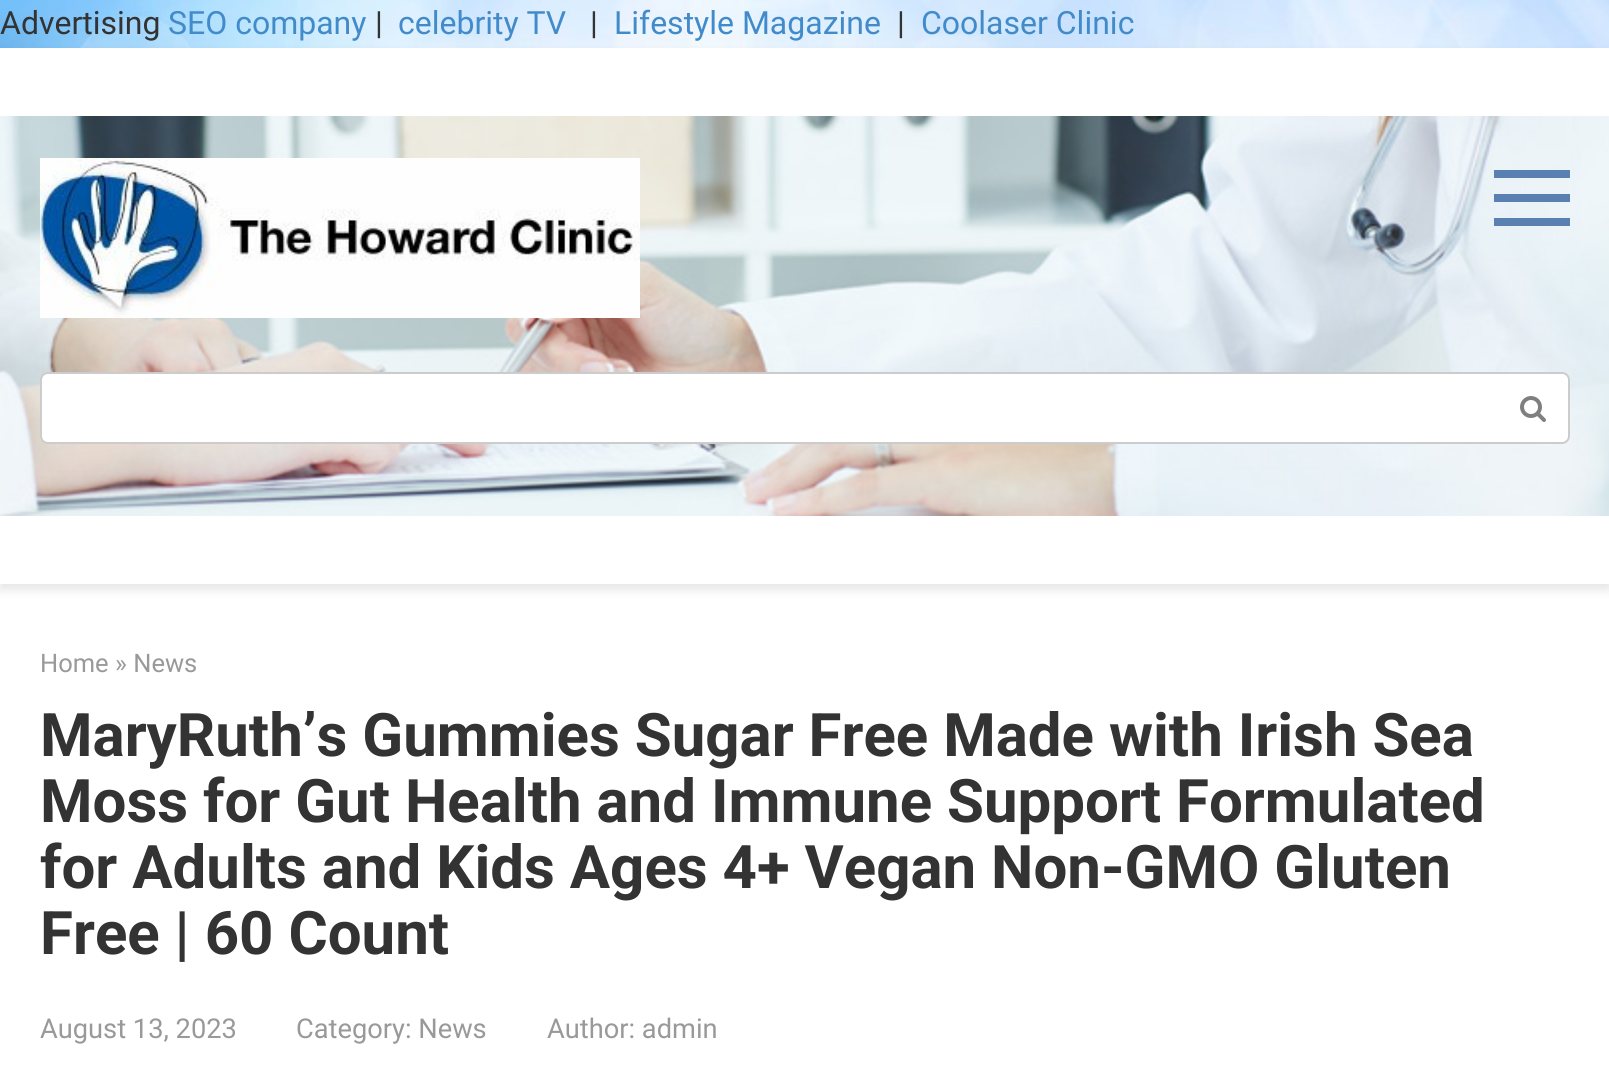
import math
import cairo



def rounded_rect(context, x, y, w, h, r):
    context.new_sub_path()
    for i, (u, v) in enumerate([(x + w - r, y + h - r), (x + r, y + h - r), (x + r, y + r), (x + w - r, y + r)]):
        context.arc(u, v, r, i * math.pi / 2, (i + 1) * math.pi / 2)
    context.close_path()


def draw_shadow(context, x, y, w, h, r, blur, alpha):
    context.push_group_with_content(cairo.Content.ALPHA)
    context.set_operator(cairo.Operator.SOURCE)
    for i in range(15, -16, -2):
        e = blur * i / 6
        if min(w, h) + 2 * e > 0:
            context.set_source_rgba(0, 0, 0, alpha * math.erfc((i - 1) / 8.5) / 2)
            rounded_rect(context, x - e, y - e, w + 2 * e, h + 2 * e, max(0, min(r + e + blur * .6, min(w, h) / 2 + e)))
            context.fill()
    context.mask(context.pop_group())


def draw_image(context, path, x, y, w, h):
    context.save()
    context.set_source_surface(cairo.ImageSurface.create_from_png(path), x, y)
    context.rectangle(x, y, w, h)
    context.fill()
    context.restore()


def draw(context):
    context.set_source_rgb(1, 1, 1)
    context.paint()
    draw_image(context, "images/1.png", 0, 0, 1609, 48)
    context.set_source_rgb(0, 0, 0)
    draw_shadow(context, 0, 54, 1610, 536, 0, 5, 0.1)
    context.set_source_rgb(1, 1, 1)
    context.rectangle(0, 48, 1609, 536)
    context.fill()
    draw_image(context, "images/2.png", 0, 116, 1609, 400)
    draw_image(context, "images/3.png", 40, 158, 600, 160)
    context.set_source_rgb(90 / 255, 128 / 255, 177 / 255)
    context.rectangle(1494, 170, 76, 8)
    context.fill()
    context.rectangle(1494, 218, 76, 8)
    context.fill()
    context.rectangle(1494, 194, 76, 8)
    context.fill()
    context.set_source_rgb(1, 1, 1)
    rounded_rect(context, 41, 373, 1528, 70, 7)
    context.fill_preserve()
    context.set_source_rgb(204 / 255, 204 / 255, 204 / 255)
    context.stroke()
    draw_image(context, "images/4.png", 1520, 396, 26, 26)
    context.select_font_face("Roboto")
    context.set_font_size(32)
    context.set_source_rgb(51 / 255, 51 / 255, 51 / 255)
    context.move_to(0, 34)
    context.show_text("Advertising")
    context.set_source_rgb(66 / 255, 139 / 255, 202 / 255)
    context.move_to(168, 34)
    context.show_text("SEO company")
    context.set_source_rgb(51 / 255, 51 / 255, 51 / 255)
    context.move_to(375, 34)
    context.show_text("|")
    context.set_source_rgb(66 / 255, 139 / 255, 202 / 255)
    context.move_to(398, 34)
    context.show_text("celebrity TV")
    context.set_source_rgb(51 / 255, 51 / 255, 51 / 255)
    context.move_to(590, 34)
    context.show_text("|")
    context.set_source_rgb(66 / 255, 139 / 255, 202 / 255)
    context.move_to(614, 34)
    context.show_text("Lifestyle Magazine")
    context.set_source_rgb(51 / 255, 51 / 255, 51 / 255)
    context.move_to(897, 34)
    context.show_text("|")
    context.set_source_rgb(66 / 255, 139 / 255, 202 / 255)
    context.move_to(921, 34)
    context.show_text("Coolaser Clinic")
    context.set_font_size(25.5)
    context.set_source_rgb(153 / 255, 153 / 255, 153 / 255)
    context.move_to(40, 672)
    context.show_text("Home » News")
    context.select_font_face("Roboto", cairo.FontSlant.NORMAL, cairo.FontWeight.BOLD)
    context.set_font_size(60)
    context.set_source_rgb(51 / 255, 51 / 255, 51 / 255)
    context.move_to(40, 756)
    context.show_text("MaryRuth’s Gummies Sugar Free Made with Irish Sea")
    context.move_to(40, 822)
    context.show_text("Moss for Gut Health and Immune Support Formulated")
    context.move_to(40, 888)
    context.show_text("for Adults and Kids Ages 4+ Vegan Non-GMO Gluten")
    context.move_to(40, 954)
    context.show_text("Free | 60 Count")
    context.select_font_face("Roboto")
    context.set_font_size(27.25)
    context.set_source_rgb(153 / 255, 153 / 255, 153 / 255)
    context.move_to(40, 1038)
    context.show_text("August 13, 2023")
    context.move_to(296, 1038)
    context.show_text("Category: News")
    context.move_to(547, 1038)
    context.show_text("Author: admin")


surface = cairo.ImageSurface(cairo.Format.RGB24, 1609, 1068)
context = cairo.Context(surface)
options = cairo.FontOptions()
options.set_hint_metrics(cairo.HintMetrics.OFF)
options.set_hint_style(cairo.HintStyle.NONE)
context.set_font_options(options)
context.set_miter_limit(4)
draw(context)
surface.write_to_png("out.png")
